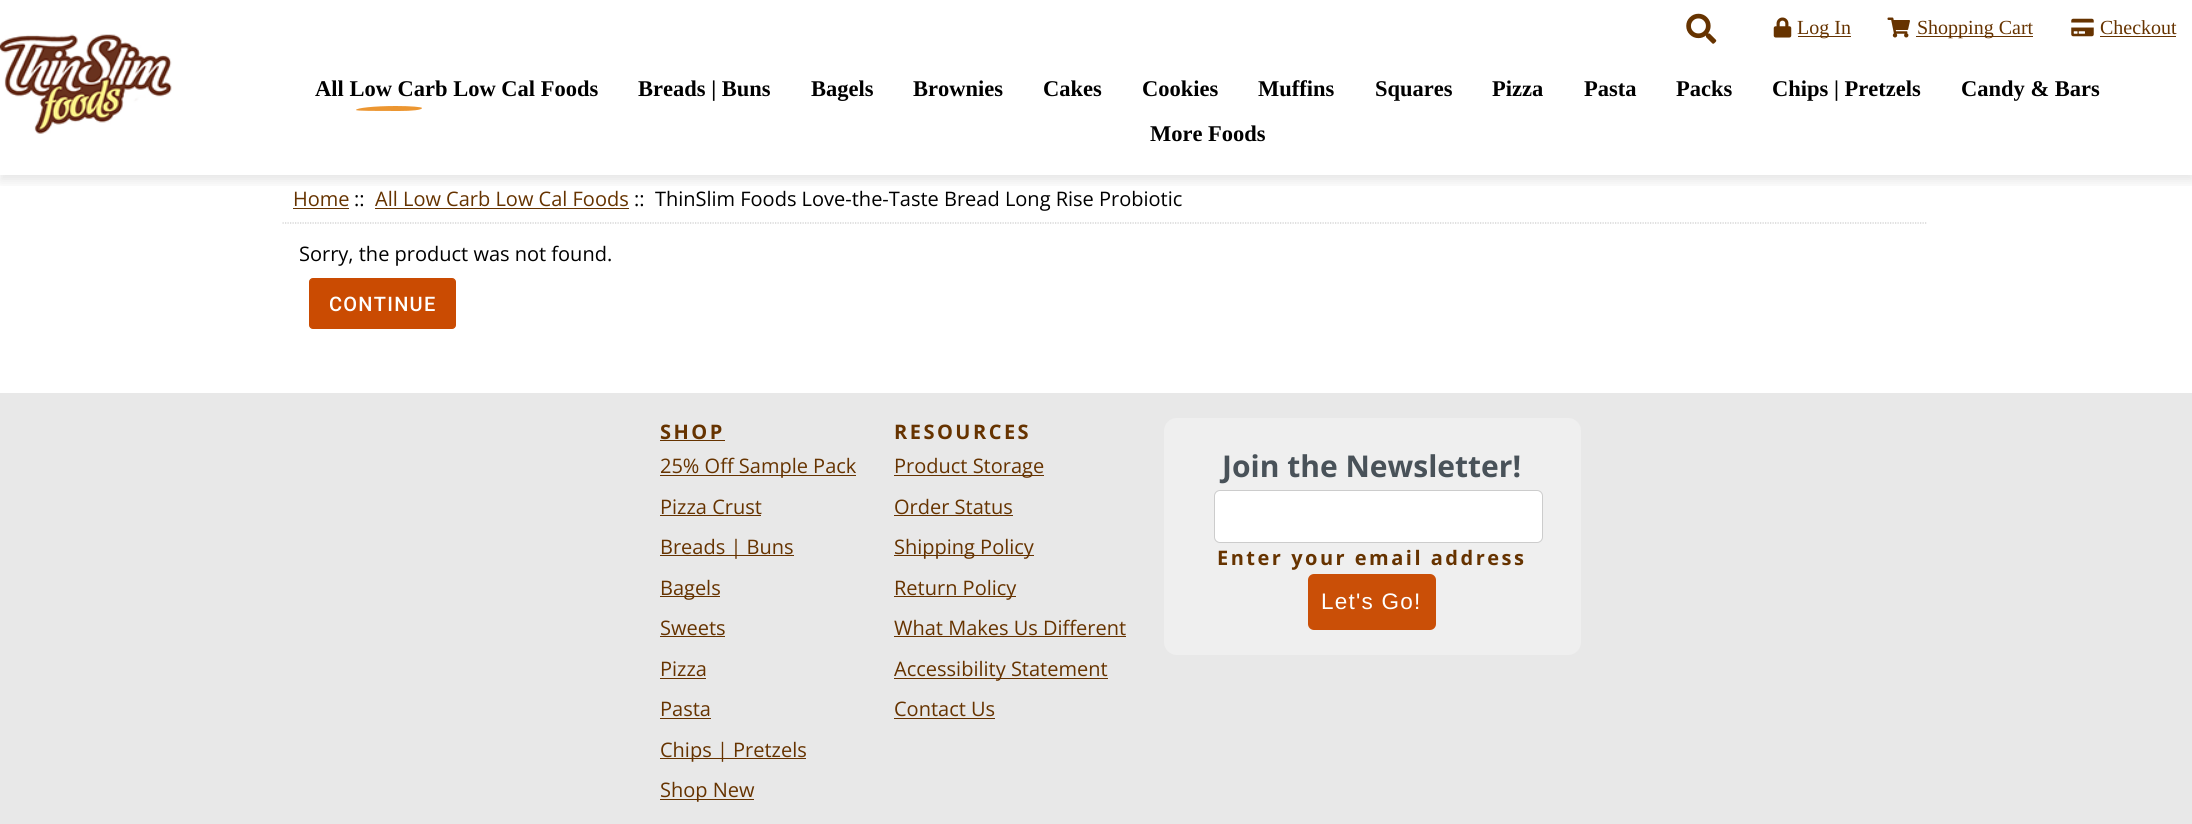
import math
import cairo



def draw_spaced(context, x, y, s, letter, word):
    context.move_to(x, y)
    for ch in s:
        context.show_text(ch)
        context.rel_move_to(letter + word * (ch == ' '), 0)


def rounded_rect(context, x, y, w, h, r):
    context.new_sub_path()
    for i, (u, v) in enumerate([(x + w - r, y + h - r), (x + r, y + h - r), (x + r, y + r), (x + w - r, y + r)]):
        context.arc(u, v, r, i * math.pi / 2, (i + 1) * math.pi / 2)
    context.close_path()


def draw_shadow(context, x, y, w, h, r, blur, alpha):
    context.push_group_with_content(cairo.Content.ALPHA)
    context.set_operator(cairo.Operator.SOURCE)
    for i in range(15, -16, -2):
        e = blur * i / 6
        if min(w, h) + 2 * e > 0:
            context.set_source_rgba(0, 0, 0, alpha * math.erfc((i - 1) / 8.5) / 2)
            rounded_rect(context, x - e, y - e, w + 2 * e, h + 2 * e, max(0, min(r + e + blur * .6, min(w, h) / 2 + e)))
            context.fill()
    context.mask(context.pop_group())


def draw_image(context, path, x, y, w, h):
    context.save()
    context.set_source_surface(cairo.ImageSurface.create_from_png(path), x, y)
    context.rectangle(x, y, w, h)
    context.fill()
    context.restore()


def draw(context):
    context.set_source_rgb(1, 1, 1)
    context.paint()
    context.save()
    context.rectangle(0, 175, 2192, 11)
    context.clip()
    context.set_source_rgb(0, 0, 0)
    draw_shadow(context, 0, 4, 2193, 177, 0, 6, 0.1)
    context.restore()
    draw_image(context, "images/1.png", 0, 34, 172, 100)
    draw_image(context, "images/2.png", 1686, 13, 31, 31)
    draw_image(context, "images/3.png", 1773, 17, 19, 21)
    context.set_source_rgb(102 / 255, 51 / 255, 0)
    context.rectangle(1798, 36, 53, 1)
    context.fill()
    draw_image(context, "images/4.png", 1887, 17, 23, 21)
    context.rectangle(1916, 36, 117, 1)
    context.fill()
    draw_image(context, "images/5.png", 2071, 18, 23, 19)
    context.rectangle(2100, 36, 76, 1)
    context.fill()
    context.set_source_rgb(236 / 255, 150 / 255, 49 / 255)
    context.new_path()
    context.move_to(396, 106)
    context.curve_to(411, 106, 422, 107, 422, 108)
    context.curve_to(422, 110, 412, 111, 399, 111)
    context.curve_to(376, 111, 356, 111, 356, 110)
    context.curve_to(356, 108, 374, 106, 396, 106)
    context.close_path()
    context.fill()
    context.new_path()
    context.move_to(282.5, 223)
    context.line_to(1927.5, 223)
    context.set_source_rgb(204 / 255, 204 / 255, 204 / 255)
    context.set_line_width(1.2)
    context.set_dash([1.25, 1.25])
    context.stroke()
    context.set_source_rgb(102 / 255, 51 / 255, 0)
    context.rectangle(293, 208, 56, 1)
    context.fill()
    context.rectangle(375, 208, 254, 1)
    context.fill()
    context.set_source_rgb(202 / 255, 75 / 255, 2 / 255)
    rounded_rect(context, 309.5, 278.5, 146, 50, 3.5)
    context.fill_preserve()
    context.set_line_width(1)
    context.set_dash([])
    context.stroke()
    context.set_source_rgb(232 / 255, 232 / 255, 232 / 255)
    context.rectangle(0, 393, 2192, 431)
    context.fill()
    context.set_source_rgb(102 / 255, 51 / 255, 0)
    context.rectangle(660, 440, 65, 1)
    context.fill()
    context.rectangle(660, 475, 196, 1)
    context.fill()
    context.rectangle(660, 515, 101, 1)
    context.fill()
    context.rectangle(660, 555, 134, 1)
    context.fill()
    context.rectangle(660, 596, 60, 1)
    context.fill()
    context.rectangle(660, 636, 65, 1)
    context.fill()
    context.rectangle(660, 678, 46, 1)
    context.fill()
    context.rectangle(660, 718, 51, 1)
    context.fill()
    context.rectangle(660, 758, 146, 1)
    context.fill()
    context.rectangle(660, 799, 94, 1)
    context.fill()
    context.rectangle(894, 475, 150, 1)
    context.fill()
    context.rectangle(894, 515, 119, 1)
    context.fill()
    context.rectangle(894, 555, 140, 1)
    context.fill()
    context.rectangle(894, 596, 122, 1)
    context.fill()
    context.rectangle(894, 636, 232, 1)
    context.fill()
    context.rectangle(894, 678, 214, 1)
    context.fill()
    context.rectangle(894, 718, 101, 1)
    context.fill()
    context.set_source_rgb(239 / 255, 239 / 255, 239 / 255)
    rounded_rect(context, 1164, 418, 417, 237, 13)
    context.fill()
    context.set_source_rgb(1, 1, 1)
    rounded_rect(context, 1214.5, 490.5, 328, 52, 5.5)
    context.fill_preserve()
    context.set_source_rgb(204 / 255, 204 / 255, 204 / 255)
    context.stroke()
    context.set_source_rgb(202 / 255, 79 / 255, 7 / 255)
    rounded_rect(context, 1308, 574, 128, 56, 6)
    context.fill()
    context.select_font_face("Liberation Serif")
    context.set_font_size(20)
    context.set_source_rgb(102 / 255, 51 / 255, 0)
    context.move_to(1797, 34)
    context.show_text("Log In")
    context.move_to(1917, 34)
    context.show_text("Shopping Cart")
    context.move_to(2100, 34)
    context.show_text("Checkout")
    context.select_font_face("Liberation Serif", cairo.FontSlant.NORMAL, cairo.FontWeight.BOLD)
    context.set_font_size(22.5)
    context.set_source_rgb(0, 0, 0)
    context.move_to(315, 96)
    context.show_text("All Low Carb Low Cal Foods")
    context.move_to(638, 96)
    context.show_text("Breads | Buns")
    context.move_to(811, 96)
    context.show_text("Bagels")
    context.move_to(913, 96)
    context.show_text("Brownies")
    context.move_to(1043, 96)
    context.show_text("Cakes")
    context.move_to(1142, 96)
    context.show_text("Cookies")
    context.move_to(1258, 96)
    context.show_text("Muffins")
    context.move_to(1375, 96)
    context.show_text("Squares")
    context.move_to(1492, 96)
    context.show_text("Pizza")
    context.move_to(1584, 96)
    context.show_text("Pasta")
    context.move_to(1676, 96)
    context.show_text("Packs")
    context.move_to(1772, 96)
    context.show_text("Chips | Pretzels")
    context.move_to(1961, 96)
    context.show_text("Candy & Bars")
    context.move_to(1150, 141)
    context.show_text("More Foods")
    context.select_font_face("Open Sans")
    context.set_font_size(20)
    context.set_source_rgb(102 / 255, 51 / 255, 0)
    context.move_to(293, 206)
    context.show_text("Home")
    context.set_source_rgb(0, 0, 0)
    context.move_to(354, 206)
    context.show_text("::")
    context.set_source_rgb(102 / 255, 51 / 255, 0)
    context.move_to(375, 206)
    context.show_text("All Low Carb Low Cal Foods")
    context.set_source_rgb(0, 0, 0)
    context.move_to(634, 206)
    context.show_text("::  ThinSlim Foods Love-the-Taste Bread Long Rise Probiotic")
    context.move_to(299, 261)
    context.show_text("Sorry, the product was not found.")
    context.select_font_face("Roboto Medium")
    context.set_source_rgb(1, 1, 1)
    draw_spaced(context, 329, 311, "CONTINUE", 1.25, 0)
    context.select_font_face("Open Sans", cairo.FontSlant.NORMAL, cairo.FontWeight.BOLD)
    context.set_source_rgb(102 / 255, 51 / 255, 0)
    draw_spaced(context, 660, 439, "SHOP", 2.5, 0)
    context.select_font_face("Open Sans")
    context.move_to(660, 473)
    context.show_text("25% Off Sample Pack")
    context.move_to(660, 514)
    context.show_text("Pizza Crust")
    context.move_to(660, 554)
    context.show_text("Breads | Buns")
    context.move_to(660, 595)
    context.show_text("Bagels")
    context.move_to(660, 635)
    context.show_text("Sweets")
    context.move_to(660, 676)
    context.show_text("Pizza")
    context.move_to(660, 716)
    context.show_text("Pasta")
    context.move_to(660, 757)
    context.show_text("Chips | Pretzels")
    context.move_to(660, 797)
    context.show_text("Shop New")
    context.select_font_face("Open Sans", cairo.FontSlant.NORMAL, cairo.FontWeight.BOLD)
    draw_spaced(context, 894, 439, "RESOURCES", 2.5, 0)
    context.select_font_face("Open Sans")
    context.move_to(894, 473)
    context.show_text("Product Storage")
    context.move_to(894, 514)
    context.show_text("Order Status")
    context.move_to(894, 554)
    context.show_text("Shipping Policy")
    context.move_to(894, 595)
    context.show_text("Return Policy")
    context.move_to(894, 635)
    context.show_text("What Makes Us Different")
    context.move_to(894, 676)
    context.show_text("Accessibility Statement")
    context.move_to(894, 716)
    context.show_text("Contact Us")
    context.select_font_face("Open Sans", cairo.FontSlant.NORMAL, cairo.FontWeight.BOLD)
    context.set_font_size(30)
    context.set_source_rgb(73 / 255, 82 / 255, 89 / 255)
    context.move_to(1222, 477)
    context.show_text("Join the Newsletter!")
    context.set_font_size(20)
    context.set_source_rgb(102 / 255, 51 / 255, 0)
    draw_spaced(context, 1217, 565, "Enter your email address", 2.5, 0)
    context.select_font_face("Liberation Sans")
    context.set_font_size(22.5)
    context.set_source_rgb(1, 1, 1)
    draw_spaced(context, 1321, 609, "Let's Go!", 1.25, 0)


surface = cairo.ImageSurface(cairo.Format.RGB24, 2192, 824)
context = cairo.Context(surface)
options = cairo.FontOptions()
options.set_hint_metrics(cairo.HintMetrics.OFF)
options.set_hint_style(cairo.HintStyle.NONE)
context.set_font_options(options)
context.set_miter_limit(4)
draw(context)
surface.write_to_png("out.png")
